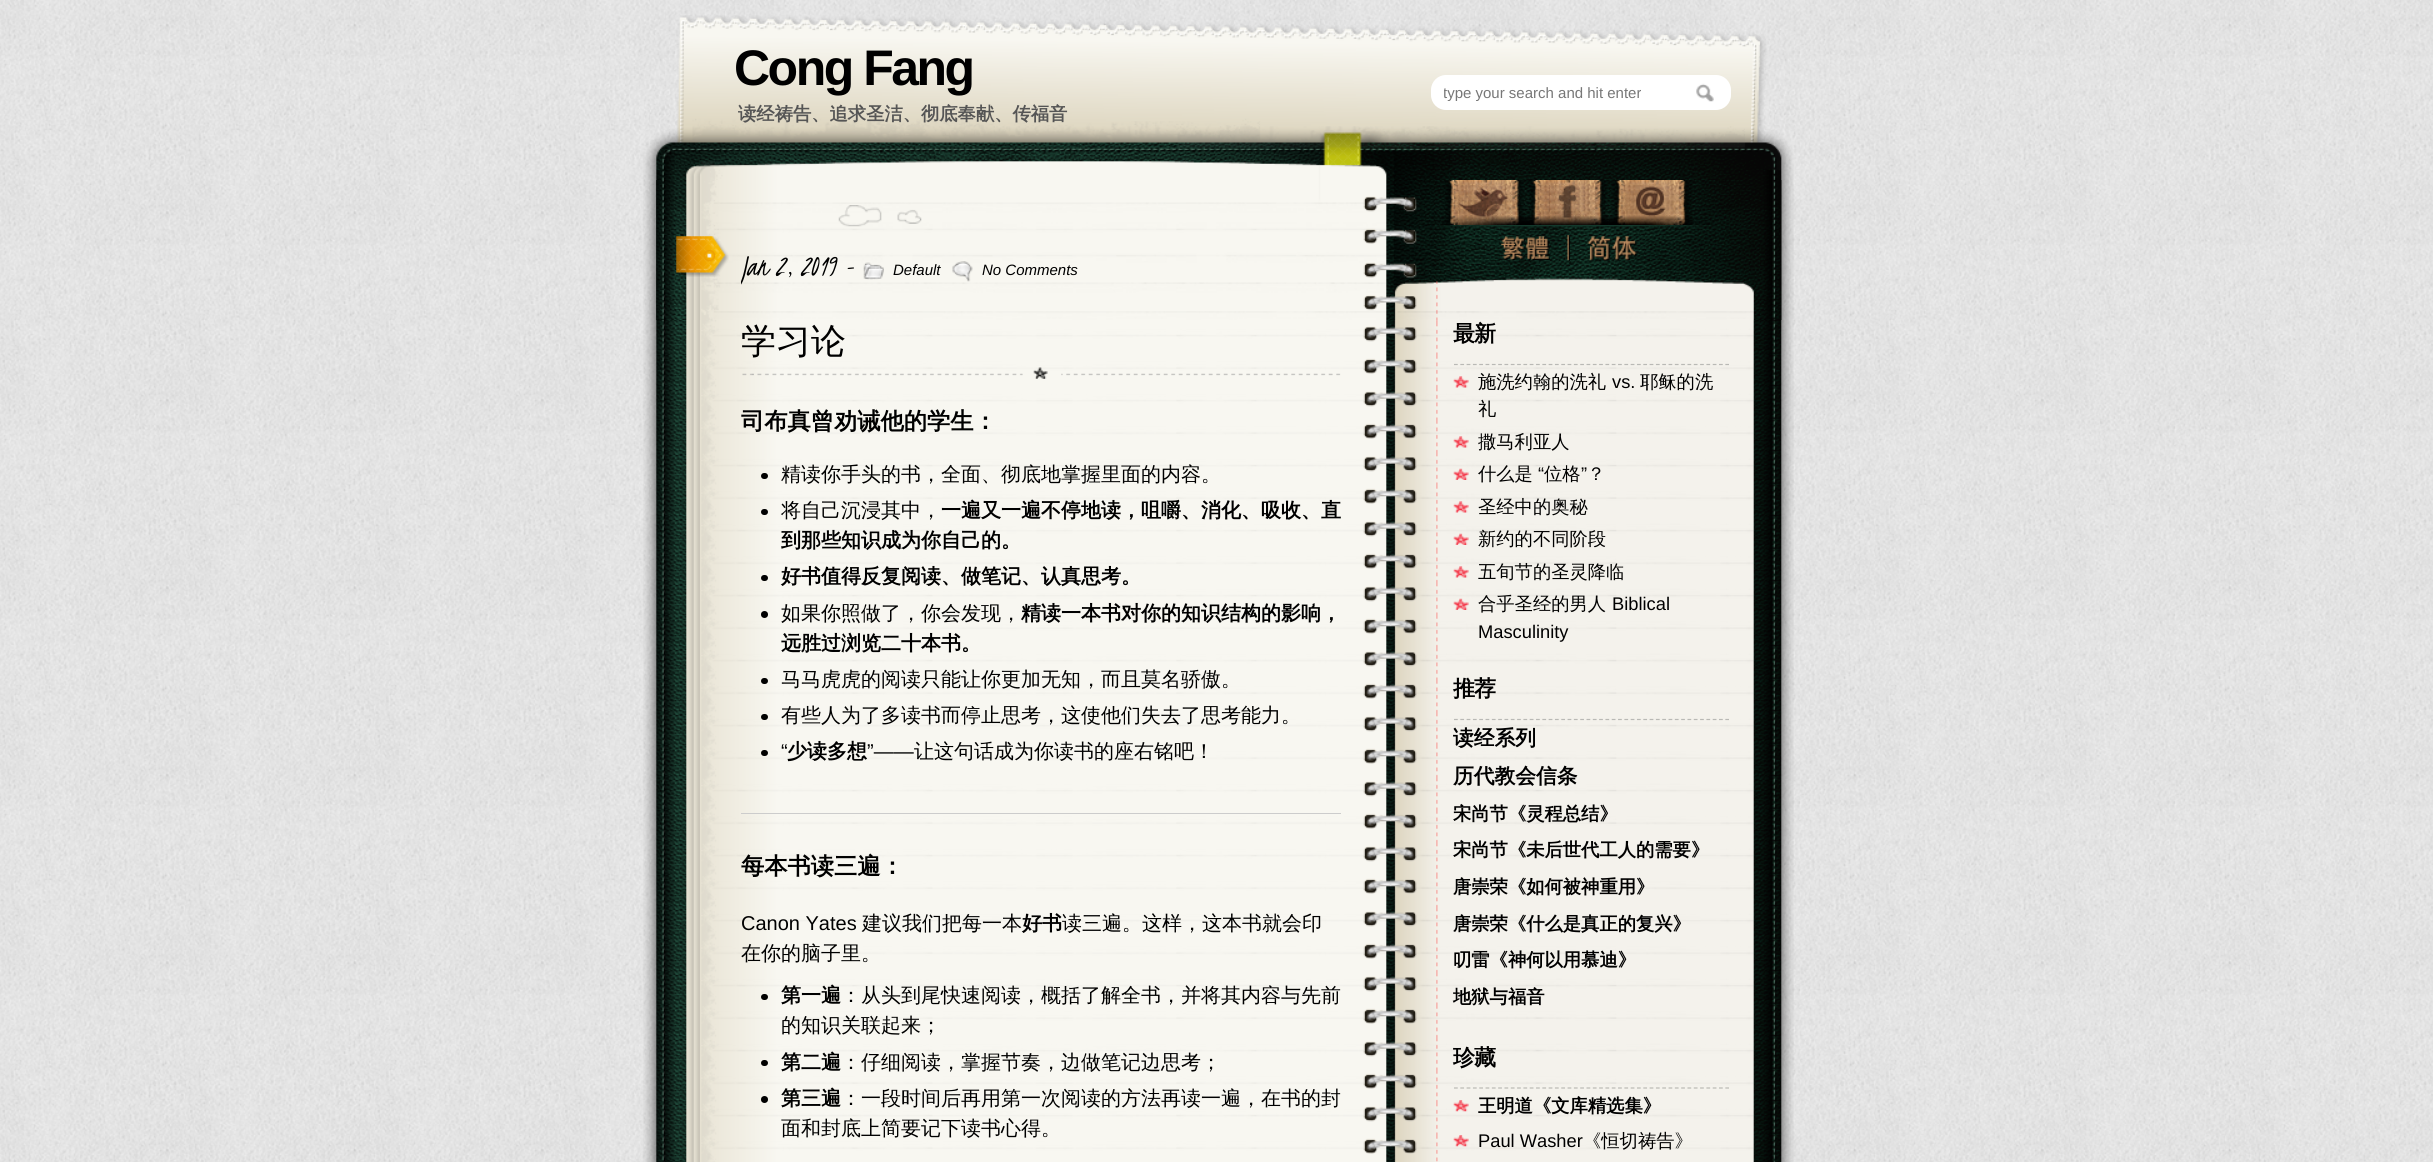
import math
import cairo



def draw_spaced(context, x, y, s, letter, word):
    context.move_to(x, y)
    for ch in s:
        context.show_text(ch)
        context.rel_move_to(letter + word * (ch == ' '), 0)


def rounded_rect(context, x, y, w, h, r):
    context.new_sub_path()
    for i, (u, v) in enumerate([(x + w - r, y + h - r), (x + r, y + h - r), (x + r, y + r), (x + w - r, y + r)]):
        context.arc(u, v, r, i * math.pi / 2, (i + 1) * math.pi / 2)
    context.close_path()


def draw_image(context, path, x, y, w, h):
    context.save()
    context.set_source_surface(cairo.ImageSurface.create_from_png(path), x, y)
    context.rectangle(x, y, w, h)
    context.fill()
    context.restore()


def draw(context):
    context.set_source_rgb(1, 1, 1)
    context.paint()
    draw_image(context, "images/1.png", 0, 0, 2433, 1162)
    draw_image(context, "images/2.png", 643, 15, 1151, 165)
    context.set_source_rgb(1, 1, 1)
    rounded_rect(context, 1431, 75, 300, 35, 15)
    context.fill()
    draw_image(context, "images/3.png", 1696, 83, 18, 19)
    draw_image(context, "images/4.png", 643, 180, 1151, 982)
    draw_image(context, "images/5.png", 656, 180, 1126, 140)
    draw_image(context, "images/6.png", 838, 205, 84, 22)
    draw_image(context, "images/7.png", 676, 236, 53, 41)
    draw_image(context, "images/8.png", 742, 367, 599, 12)
    draw_image(context, "images/9.png", 863, 262, 21, 18)
    draw_image(context, "images/10.png", 952, 261, 21, 21)
    context.set_source_rgb(0, 0, 0)
    rounded_rect(context, 761, 473, 7, 6, 3)
    context.fill()
    rounded_rect(context, 761, 509, 7, 6, 3)
    context.fill()
    rounded_rect(context, 761, 575, 7, 6, 3)
    context.fill()
    context.arc(764.5, 614.5, 3.5, 0, 2 * math.pi)
    context.fill()
    rounded_rect(context, 761, 678, 7, 6, 3)
    context.fill()
    rounded_rect(context, 761, 714, 7, 6, 3)
    context.fill()
    rounded_rect(context, 761, 750, 7, 6, 3)
    context.fill()
    context.set_source_rgb(204 / 255, 204 / 255, 204 / 255)
    context.rectangle(741, 813, 600, 1)
    context.fill()
    context.set_source_rgb(0, 0, 0)
    rounded_rect(context, 761, 994, 7, 6, 3)
    context.fill()
    rounded_rect(context, 761, 1060, 7, 6, 3)
    context.fill()
    context.arc(764.5, 1099.5, 3.5, 0, 2 * math.pi)
    context.fill()
    draw_image(context, "images/11.png", 1427, 216, 289, 11)
    draw_image(context, "images/12.png", 1442, 180, 83, 45)
    draw_image(context, "images/13.png", 1525, 180, 84, 45)
    draw_image(context, "images/14.png", 1609, 180, 84, 45)
    draw_image(context, "images/15.png", 1501, 236, 49, 25)
    draw_image(context, "images/16.png", 1567, 235, 3, 27)
    draw_image(context, "images/17.png", 1587, 236, 51, 26)
    context.new_path()
    context.move_to(1454, 364.5)
    context.line_to(1729, 364.5)
    context.set_source_rgb(185 / 255, 185 / 255, 181 / 255)
    context.set_line_width(1.2)
    context.set_dash([3.75, 2.56])
    context.stroke()
    draw_image(context, "images/18.png", 1453, 376, 16, 12)
    draw_image(context, "images/18.png", 1453, 436, 16, 12)
    draw_image(context, "images/19.png", 1453, 468, 16, 12)
    draw_image(context, "images/18.png", 1453, 501, 16, 12)
    draw_image(context, "images/19.png", 1453, 533, 16, 12)
    draw_image(context, "images/18.png", 1453, 566, 16, 12)
    draw_image(context, "images/19.png", 1453, 598, 16, 12)
    context.new_path()
    context.move_to(1454, 719.5)
    context.line_to(1729, 719.5)
    context.stroke()
    context.new_path()
    context.move_to(1454, 1088)
    context.line_to(1729, 1088)
    context.stroke()
    draw_image(context, "images/20.png", 1453, 1100, 16, 12)
    draw_image(context, "images/21.png", 1453, 1135, 16, 12)
    context.select_font_face("Liberation Sans", cairo.FontSlant.NORMAL, cairo.FontWeight.BOLD)
    context.set_font_size(50)
    context.set_source_rgb(0, 0, 0)
    draw_spaced(context, 734, 85, "Cong Fang", -2.5, 0)
    context.select_font_face("WenQuanYi Zen Hei", cairo.FontSlant.NORMAL, cairo.FontWeight.BOLD)
    context.set_font_size(18.3)
    context.set_source_rgb(85 / 255, 85 / 255, 85 / 255)
    context.move_to(738, 120)
    context.show_text("读经祷告、追求圣洁、彻底奉献、传福音")
    context.save()
    context.rectangle(1444, 84, 275, 17)
    context.clip()
    context.select_font_face("Liberation Sans")
    context.set_font_size(15)
    context.set_source_rgb(119 / 255, 119 / 255, 119 / 255)
    context.move_to(1443, 98)
    context.show_text("type your search and hit enter")
    context.restore()
    context.save()
    context.rectangle(741, 205, 600, 174)
    context.clip()
    context.select_font_face("Kristi")
    context.set_font_size(32.5)
    context.set_source_rgb(0, 0, 0)
    context.move_to(741, 275)
    context.show_text("Jan 2, 2019 -")
    context.restore()
    context.select_font_face("Liberation Sans", cairo.FontSlant.ITALIC)
    context.set_font_size(15)
    context.set_source_rgb(0, 0, 0)
    context.move_to(893, 275)
    context.show_text("Default")
    context.move_to(982, 275)
    context.show_text("No Comments")
    context.select_font_face("WenQuanYi Zen Hei Medium")
    context.set_font_size(35)
    context.move_to(741, 353)
    context.show_text("学习论")
    context.select_font_face("WenQuanYi Zen Hei", cairo.FontSlant.NORMAL, cairo.FontWeight.BOLD)
    context.set_font_size(23.25)
    context.move_to(741, 429)
    context.show_text("司布真曾劝诫他的学生：")
    context.select_font_face("WenQuanYi Zen Hei Medium")
    context.set_font_size(20)
    context.move_to(781, 481)
    context.show_text("精读你手头的书，全面、彻底地掌握里面的内容。")
    context.move_to(781, 517)
    context.show_text("将自己沉浸其中，")
    context.select_font_face("WenQuanYi Zen Hei", cairo.FontSlant.NORMAL, cairo.FontWeight.BOLD)
    context.move_to(941, 517)
    context.show_text("一遍又一遍不停地读，咀嚼、消化、吸收、直")
    context.move_to(781, 547)
    context.show_text("到那些知识成为你自己的。")
    context.move_to(781, 583)
    context.show_text("好书值得反复阅读、做笔记、认真思考。")
    context.select_font_face("WenQuanYi Zen Hei Medium")
    context.move_to(781, 620)
    context.show_text("如果你照做了，你会发现，")
    context.select_font_face("WenQuanYi Zen Hei", cairo.FontSlant.NORMAL, cairo.FontWeight.BOLD)
    context.move_to(1021, 620)
    context.show_text("精读一本书对你的知识结构的影响，")
    context.move_to(781, 650)
    context.show_text("远胜过浏览二十本书。")
    context.select_font_face("WenQuanYi Zen Hei Medium")
    context.move_to(781, 686)
    context.show_text("马马虎虎的阅读只能让你更加无知，而且莫名骄傲。")
    context.move_to(781, 722)
    context.show_text("有些人为了多读书而停止思考，这使他们失去了思考能力。")
    context.select_font_face("Liberation Sans")
    context.move_to(781, 758)
    context.show_text("“")
    context.select_font_face("WenQuanYi Zen Hei", cairo.FontSlant.NORMAL, cairo.FontWeight.BOLD)
    context.move_to(787, 758)
    context.show_text("少读多想")
    context.select_font_face("Liberation Sans")
    context.move_to(867, 758)
    context.show_text("”——")
    context.select_font_face("WenQuanYi Zen Hei Medium")
    context.move_to(914, 758)
    context.show_text("让这句话成为你读书的座右铭吧！")
    context.select_font_face("WenQuanYi Zen Hei", cairo.FontSlant.NORMAL, cairo.FontWeight.BOLD)
    context.set_font_size(23.25)
    context.move_to(741, 874)
    context.show_text("每本书读三遍：")
    context.select_font_face("Liberation Sans")
    context.set_font_size(20)
    context.move_to(741, 930)
    context.show_text("Canon Yates")
    context.select_font_face("WenQuanYi Zen Hei Medium")
    context.move_to(862, 930)
    context.show_text("建议我们把每一本")
    context.select_font_face("WenQuanYi Zen Hei", cairo.FontSlant.NORMAL, cairo.FontWeight.BOLD)
    context.move_to(1022, 930)
    context.show_text("好书")
    context.select_font_face("WenQuanYi Zen Hei Medium")
    context.move_to(1062, 930)
    context.show_text("读三遍。这样，这本书就会印")
    context.move_to(741, 960)
    context.show_text("在你的脑子里。")
    context.select_font_face("WenQuanYi Zen Hei", cairo.FontSlant.NORMAL, cairo.FontWeight.BOLD)
    context.move_to(781, 1002)
    context.show_text("第一遍")
    context.select_font_face("WenQuanYi Zen Hei Medium")
    context.move_to(841, 1002)
    context.show_text("：从头到尾快速阅读，概括了解全书，并将其内容与先前")
    context.move_to(781, 1032)
    context.show_text("的知识关联起来；")
    context.select_font_face("WenQuanYi Zen Hei", cairo.FontSlant.NORMAL, cairo.FontWeight.BOLD)
    context.move_to(781, 1069)
    context.show_text("第二遍")
    context.select_font_face("WenQuanYi Zen Hei Medium")
    context.move_to(841, 1069)
    context.show_text("：仔细阅读，掌握节奏，边做笔记边思考；")
    context.select_font_face("WenQuanYi Zen Hei", cairo.FontSlant.NORMAL, cairo.FontWeight.BOLD)
    context.move_to(781, 1105)
    context.show_text("第三遍")
    context.select_font_face("WenQuanYi Zen Hei Medium")
    context.move_to(841, 1105)
    context.show_text("：一段时间后再用第一次阅读的方法再读一遍，在书的封")
    context.move_to(781, 1135)
    context.show_text("面和封底上简要记下读书心得。")
    context.select_font_face("WenQuanYi Zen Hei", cairo.FontSlant.NORMAL, cairo.FontWeight.BOLD)
    context.set_font_size(22)
    draw_spaced(context, 1453, 341, "最新", -1, 0)
    context.select_font_face("WenQuanYi Zen Hei Medium")
    context.set_font_size(18.3)
    context.move_to(1478, 388)
    context.show_text("施洗约翰的洗礼")
    context.select_font_face("Liberation Sans")
    context.move_to(1612, 388)
    context.show_text("vs.")
    context.select_font_face("WenQuanYi Zen Hei Medium")
    context.move_to(1640, 388)
    context.show_text("耶稣的洗")
    context.move_to(1478, 415)
    context.show_text("礼")
    context.move_to(1478, 448)
    context.show_text("撒马利亚人")
    context.move_to(1478, 480)
    context.show_text("什么是")
    context.select_font_face("Liberation Sans")
    context.move_to(1538, 480)
    context.show_text("“")
    context.select_font_face("WenQuanYi Zen Hei Medium")
    context.move_to(1544, 480)
    context.show_text("位格")
    context.select_font_face("Liberation Sans")
    context.move_to(1581, 480)
    context.show_text("”")
    context.select_font_face("WenQuanYi Zen Hei Medium")
    context.move_to(1587, 480)
    context.show_text("？")
    context.move_to(1478, 513)
    context.show_text("圣经中的奥秘")
    context.move_to(1478, 545)
    context.show_text("新约的不同阶段")
    context.move_to(1478, 578)
    context.show_text("五旬节的圣灵降临")
    context.move_to(1478, 610)
    context.show_text("合乎圣经的男人")
    context.select_font_face("Liberation Sans")
    context.move_to(1612, 610)
    context.show_text("Biblical")
    context.move_to(1478, 638)
    context.show_text("Masculinity")
    context.select_font_face("WenQuanYi Zen Hei", cairo.FontSlant.NORMAL, cairo.FontWeight.BOLD)
    context.set_font_size(22)
    draw_spaced(context, 1453, 696, "推荐", -1, 0)
    context.set_font_size(20.75)
    context.move_to(1453, 745)
    context.show_text("读经系列")
    context.move_to(1453, 783)
    context.show_text("历代教会信条")
    context.set_font_size(18.3)
    context.move_to(1453, 820)
    context.show_text("宋尚节《灵程总结》")
    context.move_to(1453, 856)
    context.show_text("宋尚节《未后世代工人的需要》")
    context.move_to(1453, 893)
    context.show_text("唐崇荣《如何被神重用》")
    context.move_to(1453, 930)
    context.show_text("唐崇荣《什么是真正的复兴》")
    context.move_to(1453, 966)
    context.show_text("叨雷《神何以用慕迪》")
    context.move_to(1453, 1003)
    context.show_text("地狱与福音")
    context.set_font_size(22)
    draw_spaced(context, 1453, 1065, "珍藏", -1, 0)
    context.set_font_size(18.3)
    context.move_to(1478, 1112)
    context.show_text("王明道《文库精选集》")
    context.select_font_face("Liberation Sans")
    context.move_to(1478, 1147)
    context.show_text("Paul Washer")
    context.select_font_face("WenQuanYi Zen Hei Medium")
    context.move_to(1583, 1147)
    context.show_text("《恒切祷告》")


surface = cairo.ImageSurface(cairo.Format.RGB24, 2433, 1162)
context = cairo.Context(surface)
options = cairo.FontOptions()
options.set_hint_metrics(cairo.HintMetrics.OFF)
options.set_hint_style(cairo.HintStyle.NONE)
context.set_font_options(options)
context.set_miter_limit(4)
draw(context)
surface.write_to_png("out.png")
